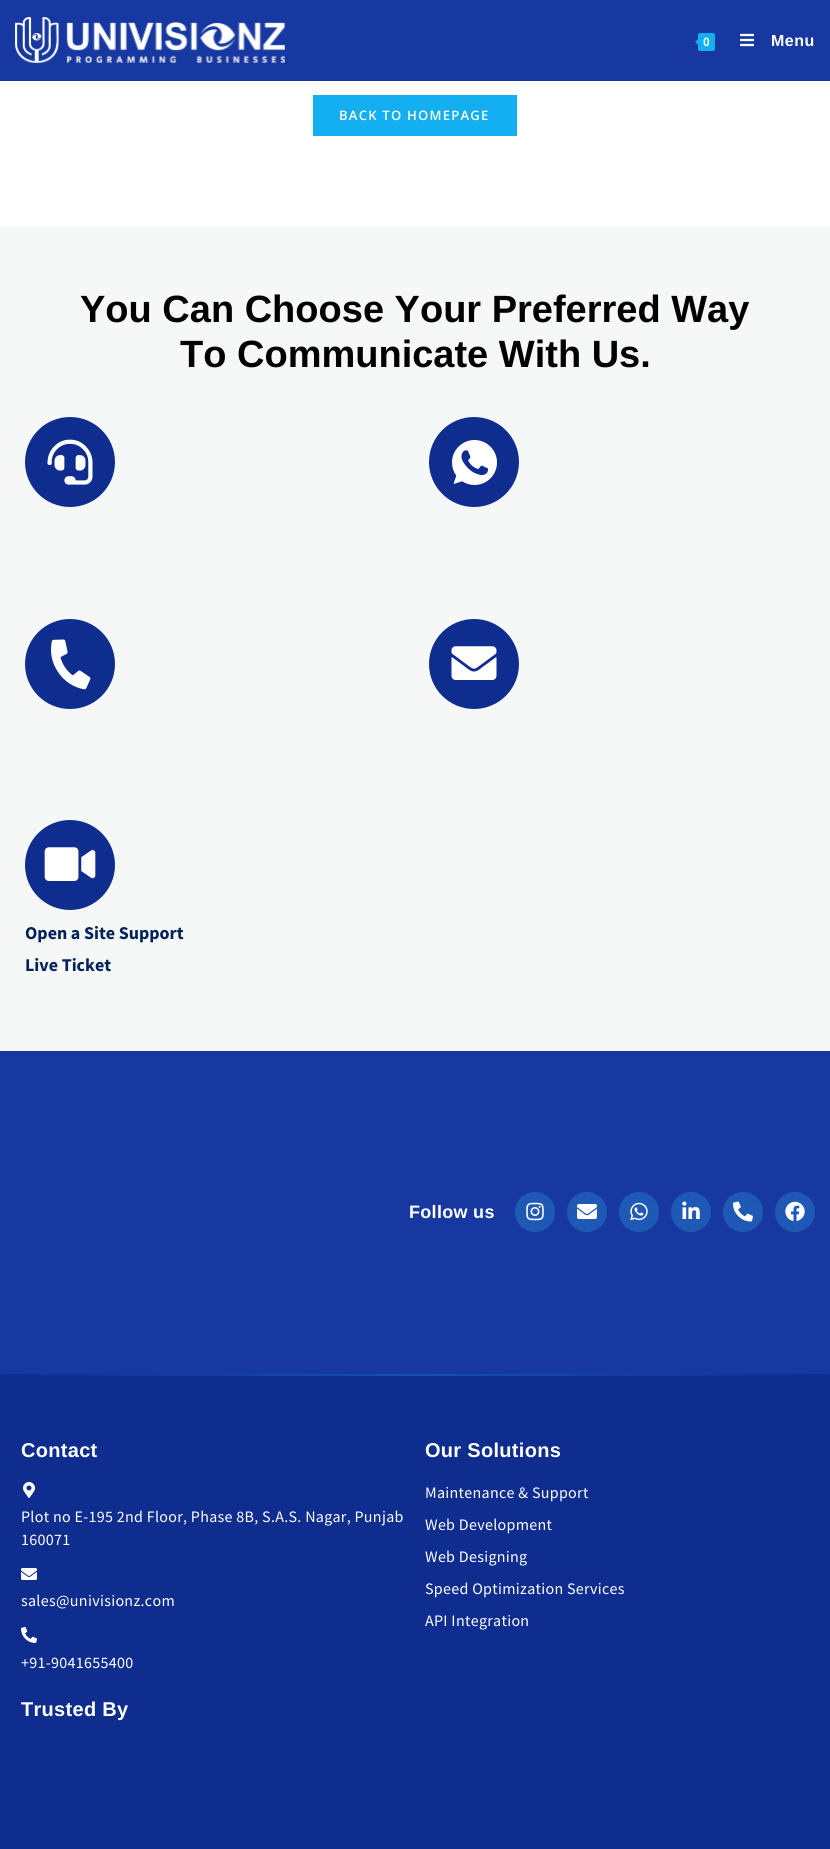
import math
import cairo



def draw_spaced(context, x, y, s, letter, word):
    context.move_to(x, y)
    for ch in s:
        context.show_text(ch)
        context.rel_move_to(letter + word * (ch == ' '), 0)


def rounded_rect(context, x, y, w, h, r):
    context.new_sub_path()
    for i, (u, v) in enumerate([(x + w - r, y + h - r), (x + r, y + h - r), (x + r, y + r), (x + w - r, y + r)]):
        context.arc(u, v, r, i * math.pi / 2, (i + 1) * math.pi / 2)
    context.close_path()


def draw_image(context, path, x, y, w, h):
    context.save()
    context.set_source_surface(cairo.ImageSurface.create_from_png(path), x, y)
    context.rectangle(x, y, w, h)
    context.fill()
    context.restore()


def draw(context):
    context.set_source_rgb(1, 1, 1)
    context.paint()
    context.set_source_rgb(23 / 255, 56 / 255, 161 / 255)
    context.rectangle(0, 0, 830, 81)
    context.fill()
    draw_image(context, "images/1.png", 15, 17, 270, 46)
    context.set_source_rgb(19 / 255, 175 / 255, 240 / 255)
    rounded_rect(context, 698, 33, 17, 18, 2)
    context.fill()
    context.new_path()
    context.move_to(700, 37)
    context.line_to(700, 47)
    context.line_to(695, 42)
    context.close_path()
    context.fill()
    draw_image(context, "images/2.png", 740, 33, 14, 14)
    context.rectangle(313, 95, 204, 41)
    context.fill()
    context.set_source_rgb(246 / 255, 248 / 255, 247 / 255)
    context.rectangle(0, 227, 830, 824)
    context.fill()
    context.set_source_rgb(14 / 255, 45 / 255, 143 / 255)
    context.arc(70, 462, 45, 0, 2 * math.pi)
    context.fill()
    draw_image(context, "images/3.png", 47, 439, 46, 46)
    context.arc(474, 462, 45, 0, 2 * math.pi)
    context.fill()
    draw_image(context, "images/4.png", 452, 440, 45, 45)
    context.arc(70, 664, 45, 0, 2 * math.pi)
    context.fill()
    draw_image(context, "images/5.png", 51, 639, 40, 51)
    context.arc(474, 664, 45, 0, 2 * math.pi)
    context.fill()
    draw_image(context, "images/6.png", 451, 646, 46, 34)
    context.arc(70, 865, 45, 0, 2 * math.pi)
    context.fill()
    draw_image(context, "images/7.png", 44, 847, 52, 34)
    context.set_source_rgb(23 / 255, 56 / 255, 161 / 255)
    context.rectangle(0, 1051, 830, 323)
    context.fill()
    context.set_source_rgb(30 / 255, 89 / 255, 181 / 255)
    context.arc(535, 1212, 20, 0, 2 * math.pi)
    context.fill()
    draw_image(context, "images/8.png", 526, 1202, 18, 19)
    context.arc(587, 1212, 20, 0, 2 * math.pi)
    context.fill()
    draw_image(context, "images/9.png", 577, 1204, 20, 15)
    context.arc(639, 1212, 20, 0, 2 * math.pi)
    context.fill()
    draw_image(context, "images/10.png", 630, 1202, 18, 19)
    context.arc(691, 1212, 20, 0, 2 * math.pi)
    context.fill()
    draw_image(context, "images/11.png", 682, 1201, 18, 18)
    context.arc(743, 1212, 20, 0, 2 * math.pi)
    context.fill()
    draw_image(context, "images/12.png", 733, 1201, 20, 21)
    context.arc(795, 1212, 20, 0, 2 * math.pi)
    context.fill()
    draw_image(context, "images/13.png", 785, 1201, 20, 20)
    context.set_source_rgb(14 / 255, 45 / 255, 143 / 255)
    context.rectangle(0, 1376, 830, 473)
    context.fill()
    gradient = cairo.RadialGradient(0, 0, 0, 0, 0, 1)
    gradient.set_matrix(cairo.Matrix(1 / 415, 0, 0, 1 / 1128, -1 * 415 / 415, -1 * 1376 / 1128))
    gradient.add_color_stop_rgba(0, 23 / 255, 81 / 255, 167 / 255, 1)
    gradient.add_color_stop_rgba(1, 14 / 255, 45 / 255, 143 / 255, 1)
    context.set_source(gradient)
    context.rectangle(0, 1374, 830, 2)
    context.fill()
    draw_image(context, "images/14.png", 23, 1482, 12, 16)
    draw_image(context, "images/15.png", 21, 1568, 16, 12)
    draw_image(context, "images/16.png", 21, 1627, 16, 16)
    context.select_font_face("Liberation Sans", cairo.FontSlant.NORMAL, cairo.FontWeight.BOLD)
    context.set_font_size(12)
    context.set_source_rgb(1, 1, 1)
    draw_spaced(context, 703, 46, "0", 0.5, 0)
    context.set_font_size(16)
    draw_spaced(context, 771, 46, "Menu", 0.5, 0)
    context.select_font_face("Open Sans SemiBold")
    context.set_font_size(13)
    draw_spaced(context, 339, 120, "BACK TO HOMEPAGE", 1.25, 0)
    context.select_font_face("Liberation Sans", cairo.FontSlant.NORMAL, cairo.FontWeight.BOLD)
    context.set_font_size(38)
    context.set_source_rgb(0, 0, 0)
    context.move_to(80, 322)
    context.show_text("You Can Choose Your Preferred Way")
    context.move_to(180, 367)
    context.show_text("To Communicate With Us.")
    context.select_font_face("Source Sans Pro", cairo.FontSlant.NORMAL, cairo.FontWeight.BOLD)
    context.set_font_size(18)
    context.set_source_rgb(2 / 255, 34 / 255, 92 / 255)
    context.move_to(25, 939)
    context.show_text("Open a Site Support")
    context.move_to(25, 971)
    context.show_text("Live Ticket")
    context.select_font_face("Liberation Sans", cairo.FontSlant.NORMAL, cairo.FontWeight.BOLD)
    context.set_source_rgb(1, 1, 1)
    draw_spaced(context, 409, 1218, "Follow us", 0.3, 0)
    context.set_font_size(20)
    draw_spaced(context, 21, 1457, "Contact", 0.3, 0)
    context.select_font_face("Source Sans Pro")
    context.set_font_size(16)
    draw_spaced(context, 21, 1522, "Plot no E-195 2nd Floor, Phase 8B, S.A.S. Nagar, Punjab", 0.3, 0)
    draw_spaced(context, 21, 1545, "160071", 0.3, 0)
    draw_spaced(context, 21, 1606, "sales@univisionz.com", 0.3, 0)
    draw_spaced(context, 21, 1668, "+91-9041655400", 0.3, 0)
    context.select_font_face("Liberation Sans", cairo.FontSlant.NORMAL, cairo.FontWeight.BOLD)
    context.set_font_size(20)
    draw_spaced(context, 21, 1716, "Trusted By", 0.3, 0)
    draw_spaced(context, 425, 1457, "Our Solutions", 0.3, 0)
    context.select_font_face("Source Sans Pro")
    context.set_font_size(16)
    draw_spaced(context, 425, 1498, "Maintenance & Support", 0.3, 0)
    draw_spaced(context, 425, 1530, "Web Development", 0.3, 0)
    draw_spaced(context, 425, 1562, "Web Designing", 0.3, 0)
    draw_spaced(context, 425, 1594, "Speed Optimization Services", 0.3, 0)
    draw_spaced(context, 425, 1626, "API Integration", 0.3, 0)


surface = cairo.ImageSurface(cairo.Format.RGB24, 830, 1849)
context = cairo.Context(surface)
options = cairo.FontOptions()
options.set_hint_metrics(cairo.HintMetrics.OFF)
options.set_hint_style(cairo.HintStyle.NONE)
context.set_font_options(options)
context.set_miter_limit(4)
draw(context)
surface.write_to_png("out.png")
